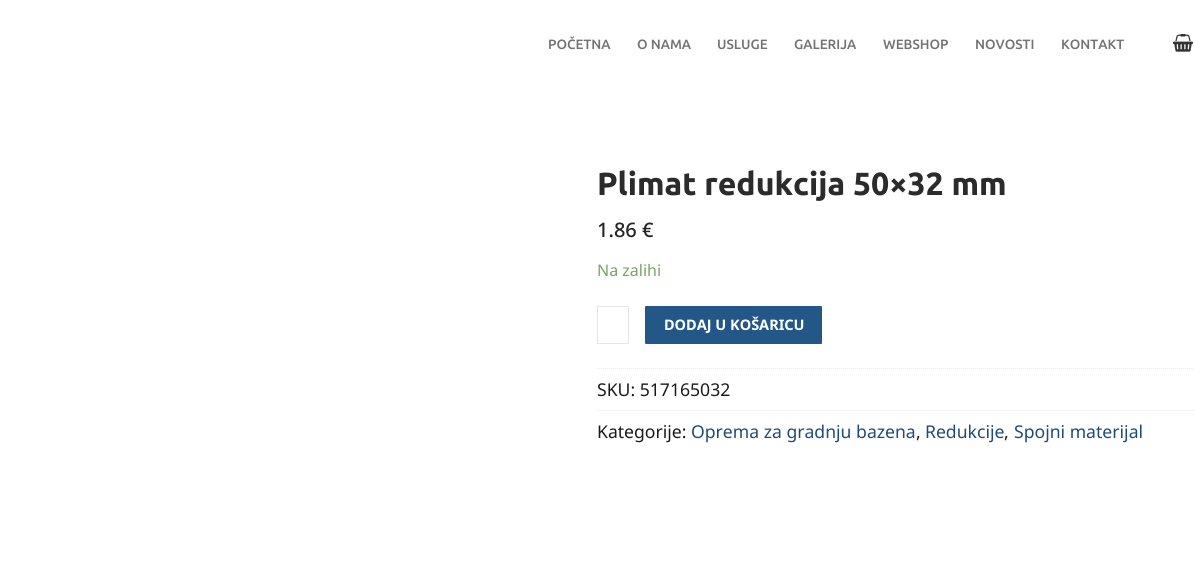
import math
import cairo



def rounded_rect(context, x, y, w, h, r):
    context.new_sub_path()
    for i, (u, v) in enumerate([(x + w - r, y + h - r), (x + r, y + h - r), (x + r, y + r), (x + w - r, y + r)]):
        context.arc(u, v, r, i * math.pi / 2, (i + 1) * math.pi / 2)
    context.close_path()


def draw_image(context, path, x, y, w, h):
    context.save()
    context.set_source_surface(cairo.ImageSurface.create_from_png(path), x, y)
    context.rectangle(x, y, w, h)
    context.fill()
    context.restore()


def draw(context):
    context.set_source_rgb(1, 1, 1)
    context.paint()
    draw_image(context, "images/1.png", 1172, 34, 22, 18)
    rounded_rect(context, 597.5, 306.5, 31, 37, 0.5)
    context.set_source_rgb(229 / 255, 229 / 255, 229 / 255)
    context.set_line_width(1)
    context.stroke()
    context.set_source_rgb(35 / 255, 87 / 255, 135 / 255)
    rounded_rect(context, 645, 306, 177, 38, 1)
    context.fill()
    context.new_path()
    context.move_to(597, 368.5)
    context.line_to(1194, 368.5)
    context.set_source_rgb(234 / 255, 236 / 255, 238 / 255)
    context.set_dash([1, 1])
    context.stroke()
    context.new_path()
    context.move_to(597, 410.5)
    context.line_to(1194, 410.5)
    context.stroke()
    context.select_font_face("Ubuntu Medium")
    context.set_font_size(13.5)
    context.set_source_rgb(115 / 255, 115 / 255, 115 / 255)
    context.move_to(548, 49)
    context.show_text("POČETNA")
    context.move_to(637, 49)
    context.show_text("O NAMA")
    context.move_to(717, 49)
    context.show_text("USLUGE")
    context.move_to(794, 49)
    context.show_text("GALERIJA")
    context.move_to(883, 49)
    context.show_text("WEBSHOP")
    context.move_to(975, 49)
    context.show_text("NOVOSTI")
    context.move_to(1061, 49)
    context.show_text("KONTAKT")
    context.select_font_face("Ubuntu", cairo.FontSlant.NORMAL, cairo.FontWeight.BOLD)
    context.set_font_size(32)
    context.set_source_rgb(43 / 255, 43 / 255, 43 / 255)
    context.move_to(597, 195)
    context.show_text("Plimat redukcija 50×32 mm")
    context.select_font_face("Noto Sans Medium")
    context.set_font_size(20)
    context.set_source_rgb(37 / 255, 37 / 255, 37 / 255)
    context.move_to(597, 237)
    context.show_text("1.86 €")
    context.select_font_face("Noto Sans")
    context.set_font_size(16)
    context.set_source_rgb(119 / 255, 164 / 255, 100 / 255)
    context.move_to(597, 276)
    context.show_text("Na zalihi")
    context.select_font_face("Noto Sans", cairo.FontSlant.NORMAL, cairo.FontWeight.BOLD)
    context.set_font_size(14.5)
    context.set_source_rgb(1, 1, 1)
    context.move_to(664, 330)
    context.show_text("DODAJ U KOŠARICU")
    context.select_font_face("Noto Sans")
    context.set_font_size(17.6)
    context.set_source_rgb(26 / 255, 26 / 255, 26 / 255)
    context.move_to(597, 396)
    context.show_text("SKU: 517165032")
    context.move_to(597, 438)
    context.show_text("Kategorije:")
    context.set_source_rgb(30 / 255, 75 / 255, 117 / 255)
    context.move_to(691, 438)
    context.show_text("Oprema za gradnju bazena")
    context.set_source_rgb(26 / 255, 26 / 255, 26 / 255)
    context.move_to(916, 438)
    context.show_text(",")
    context.set_source_rgb(30 / 255, 75 / 255, 117 / 255)
    context.move_to(925, 438)
    context.show_text("Redukcije")
    context.set_source_rgb(26 / 255, 26 / 255, 26 / 255)
    context.move_to(1004, 438)
    context.show_text(",")
    context.set_source_rgb(30 / 255, 75 / 255, 117 / 255)
    context.move_to(1014, 438)
    context.show_text("Spojni materijal")


surface = cairo.ImageSurface(cairo.Format.RGB24, 1194, 577)
context = cairo.Context(surface)
options = cairo.FontOptions()
options.set_hint_metrics(cairo.HintMetrics.OFF)
options.set_hint_style(cairo.HintStyle.NONE)
context.set_font_options(options)
context.set_miter_limit(4)
draw(context)
surface.write_to_png("out.png")
